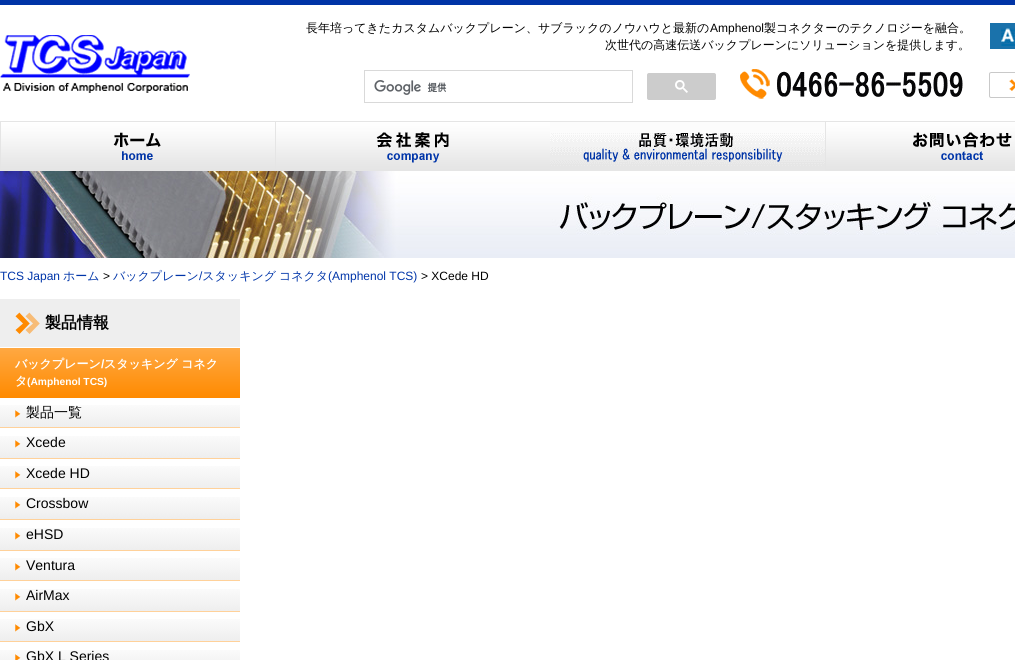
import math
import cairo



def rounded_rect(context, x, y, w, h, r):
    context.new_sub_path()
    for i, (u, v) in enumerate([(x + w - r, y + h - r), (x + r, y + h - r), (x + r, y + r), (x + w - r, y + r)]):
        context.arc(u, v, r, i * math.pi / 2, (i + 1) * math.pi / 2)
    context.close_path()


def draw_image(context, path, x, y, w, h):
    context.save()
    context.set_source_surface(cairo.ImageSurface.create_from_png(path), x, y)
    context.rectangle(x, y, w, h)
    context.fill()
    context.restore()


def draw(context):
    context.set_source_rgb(1, 1, 1)
    context.paint()
    context.set_source_rgb(0, 52 / 255, 166 / 255)
    context.rectangle(0, 0, 1015, 5)
    context.fill()
    draw_image(context, "images/1.png", 0, 35, 190, 58)
    draw_image(context, "images/2.png", 990, 23, 25, 26)
    context.rectangle(364.5, 70.5, 268, 32)
    context.set_source_rgb(217 / 255, 217 / 255, 217 / 255)
    context.set_line_width(1)
    context.stroke()
    draw_image(context, "images/3.png", 374, 80, 73, 15)
    context.set_source_rgb(204 / 255, 204 / 255, 204 / 255)
    rounded_rect(context, 647.5, 73.5, 68, 26, 1.5)
    context.fill_preserve()
    context.stroke()
    draw_image(context, "images/4.png", 675, 80, 13, 13)
    draw_image(context, "images/5.png", 740, 69, 223, 30)
    draw_image(context, "images/6.png", 989, 72, 26, 26)
    draw_image(context, "images/7.png", 0, 121, 275, 50)
    draw_image(context, "images/8.png", 275, 121, 275, 50)
    draw_image(context, "images/9.png", 550, 121, 275, 50)
    draw_image(context, "images/10.png", 825, 121, 190, 50)
    draw_image(context, "images/11.png", 0, 171, 1015, 87)
    context.set_source_rgb(238 / 255, 238 / 255, 238 / 255)
    context.rectangle(0, 299, 240, 48)
    context.fill()
    draw_image(context, "images/12.png", 15, 312, 25, 22)
    gradient = cairo.LinearGradient(120, 348, 120, 398)
    gradient.add_color_stop_rgba(0, 1, 168 / 255, 66 / 255, 1)
    gradient.add_color_stop_rgba(1, 1, 138 / 255, 0, 1)
    context.set_source(gradient)
    context.rectangle(0, 348, 240, 50)
    context.fill()
    draw_image(context, "images/13.png", 0, 405, 240, 22)
    context.set_source_rgb(1, 209 / 255, 154 / 255)
    context.rectangle(0, 427, 240, 1)
    context.fill()
    draw_image(context, "images/14.png", 0, 436, 240, 22)
    context.rectangle(0, 458, 240, 1)
    context.fill()
    draw_image(context, "images/13.png", 0, 466, 240, 22)
    context.rectangle(0, 488, 240, 1)
    context.fill()
    draw_image(context, "images/14.png", 0, 497, 240, 22)
    context.rectangle(0, 519, 240, 1)
    context.fill()
    draw_image(context, "images/14.png", 0, 528, 240, 22)
    context.rectangle(0, 550, 240, 1)
    context.fill()
    draw_image(context, "images/13.png", 0, 558, 240, 22)
    context.rectangle(0, 580, 240, 1)
    context.fill()
    draw_image(context, "images/14.png", 0, 589, 240, 22)
    context.rectangle(0, 611, 240, 1)
    context.fill()
    draw_image(context, "images/13.png", 0, 619, 240, 22)
    context.rectangle(0, 641, 240, 1)
    context.fill()
    draw_image(context, "images/15.png", 0, 650, 240, 10)
    context.select_font_face("WenQuanYi Zen Hei Medium")
    context.set_font_size(12)
    context.set_source_rgb(0, 0, 0)
    context.move_to(306, 32)
    context.show_text("長年培ってきたカスタムバックプレーン、サブラックのノウハウと最新の")
    context.select_font_face("Liberation Sans")
    context.move_to(710, 32)
    context.show_text("Amphenol")
    context.select_font_face("WenQuanYi Zen Hei Medium")
    context.move_to(764, 32)
    context.show_text("製コネクターのテクノロジーを融合。")
    context.move_to(605, 49)
    context.show_text("次世代の高速伝送バックプレーンにソリューションを提供します。")
    context.select_font_face("Liberation Sans")
    context.set_source_rgb(0, 53 / 255, 169 / 255)
    context.move_to(0, 280)
    context.show_text("TCS Japan")
    context.select_font_face("WenQuanYi Zen Hei Medium")
    context.move_to(63, 280)
    context.show_text("ホーム")
    context.move_to(113, 280)
    context.show_text("バックプレーン スタッキング")
    context.select_font_face("Liberation Sans")
    context.set_source_rgb(0, 0, 0)
    context.move_to(103, 280)
    context.show_text(">")
    context.set_source_rgb(0, 53 / 255, 169 / 255)
    context.move_to(199, 280)
    context.show_text("/")
    context.select_font_face("WenQuanYi Zen Hei Medium")
    context.move_to(279, 280)
    context.show_text("コネクタ")
    context.select_font_face("Liberation Sans")
    context.move_to(328, 280)
    context.show_text("(Amphenol TCS)")
    context.set_source_rgb(0, 0, 0)
    context.move_to(421, 280)
    context.show_text("> XCede HD")
    context.select_font_face("WenQuanYi Zen Hei", cairo.FontSlant.NORMAL, cairo.FontWeight.BOLD)
    context.set_font_size(16)
    context.move_to(45, 328)
    context.show_text("製品情報")
    context.set_font_size(12)
    context.set_source_rgb(1, 1, 1)
    context.move_to(15, 368)
    context.show_text("バックプレーン")
    context.select_font_face("Liberation Sans", cairo.FontSlant.NORMAL, cairo.FontWeight.BOLD)
    context.move_to(101, 368)
    context.show_text("/")
    context.select_font_face("WenQuanYi Zen Hei", cairo.FontSlant.NORMAL, cairo.FontWeight.BOLD)
    context.move_to(104, 368)
    context.show_text("スタッキング コネク")
    context.move_to(15, 385)
    context.show_text("タ")
    context.select_font_face("Liberation Sans", cairo.FontSlant.NORMAL, cairo.FontWeight.BOLD)
    context.set_font_size(10.25)
    context.move_to(27, 385)
    context.show_text("(Amphenol TCS)")
    context.select_font_face("WenQuanYi Zen Hei Medium")
    context.set_font_size(14)
    context.set_source_rgb(0, 0, 0)
    context.move_to(26, 417)
    context.show_text("製品一覧")
    context.select_font_face("Liberation Sans")
    context.move_to(26, 447)
    context.show_text("Xcede")
    context.move_to(26, 478)
    context.show_text("Xcede HD")
    context.move_to(26, 508)
    context.show_text("Crossbow")
    context.move_to(26, 539)
    context.show_text("eHSD")
    context.move_to(26, 570)
    context.show_text("Ventura")
    context.move_to(26, 600)
    context.show_text("AirMax")
    context.move_to(26, 631)
    context.show_text("GbX")
    context.move_to(26, 661)
    context.show_text("GbX L Series")


surface = cairo.ImageSurface(cairo.Format.RGB24, 1015, 660)
context = cairo.Context(surface)
options = cairo.FontOptions()
options.set_hint_metrics(cairo.HintMetrics.OFF)
options.set_hint_style(cairo.HintStyle.NONE)
context.set_font_options(options)
context.set_miter_limit(4)
draw(context)
surface.write_to_png("out.png")
